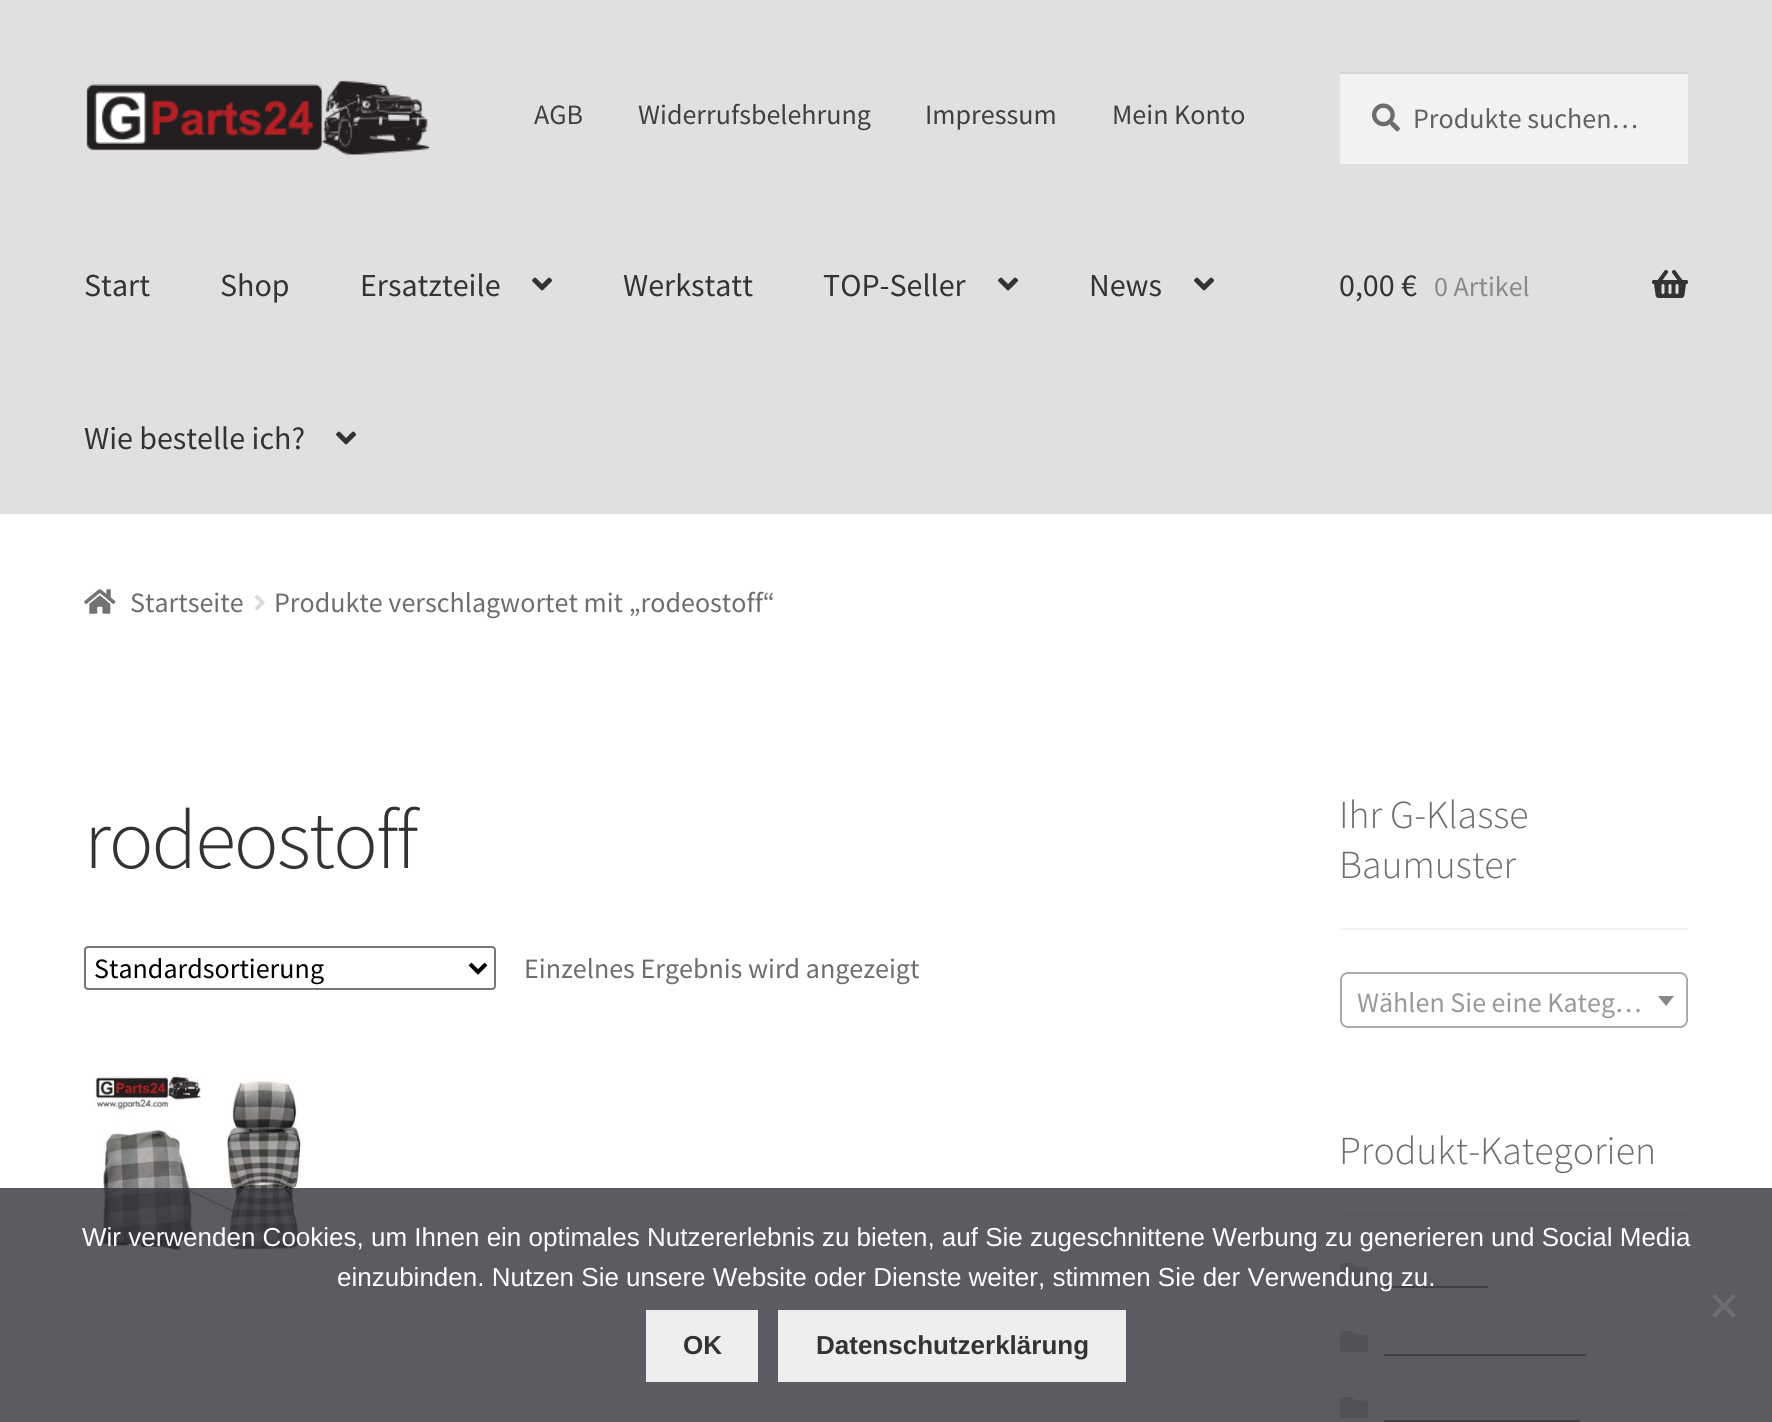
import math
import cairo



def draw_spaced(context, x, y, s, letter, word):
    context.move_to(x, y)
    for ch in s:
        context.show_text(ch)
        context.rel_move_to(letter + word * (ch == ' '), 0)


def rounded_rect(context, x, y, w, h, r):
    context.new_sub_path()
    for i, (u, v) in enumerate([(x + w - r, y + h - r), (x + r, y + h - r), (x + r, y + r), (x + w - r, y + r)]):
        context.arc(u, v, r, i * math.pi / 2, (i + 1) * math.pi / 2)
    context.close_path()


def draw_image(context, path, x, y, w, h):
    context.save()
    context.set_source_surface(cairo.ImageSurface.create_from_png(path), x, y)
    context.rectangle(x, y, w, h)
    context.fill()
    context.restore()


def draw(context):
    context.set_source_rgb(1, 1, 1)
    context.paint()
    context.set_source_rgb(224 / 255, 224 / 255, 224 / 255)
    context.rectangle(0, 0, 1772, 514)
    context.fill()
    draw_image(context, "images/1.png", 86, 80, 344, 75)
    context.set_source_rgb(242 / 255, 242 / 255, 242 / 255)
    context.rectangle(1340, 74, 348, 90)
    context.fill()
    draw_image(context, "images/2.png", 1372, 103, 28, 29)
    context.set_source_rgb(212 / 255, 212 / 255, 212 / 255)
    context.rectangle(1340, 72, 348, 2)
    context.fill()
    draw_image(context, "images/3.png", 532, 277, 20, 14)
    draw_image(context, "images/3.png", 998, 277, 20, 14)
    draw_image(context, "images/3.png", 1194, 277, 20, 14)
    draw_image(context, "images/3.png", 336, 431, 20, 14)
    draw_image(context, "images/4.png", 1652, 270, 36, 28)
    draw_image(context, "images/5.png", 84, 589, 32, 25)
    draw_image(context, "images/6.png", 255, 595, 10, 16)
    rounded_rect(context, 85, 947, 410, 42, 3)
    context.set_source_rgb(118 / 255, 118 / 255, 118 / 255)
    context.stroke()
    context.new_path()
    context.move_to(470, 964)
    context.line_to(478, 972)
    context.line_to(486, 964)
    context.set_source_rgb(0, 0, 0)
    context.set_line_width(4)
    context.stroke()
    draw_image(context, "images/7.png", 92, 1076, 212, 174)
    context.set_source_rgb(242 / 255, 242 / 255, 242 / 255)
    context.rectangle(1340, 928, 348, 2)
    context.fill()
    rounded_rect(context, 1341, 973, 346, 54, 7)
    context.set_source_rgb(170 / 255, 170 / 255, 170 / 255)
    context.set_line_width(2)
    context.stroke()
    context.set_source_rgb(136 / 255, 136 / 255, 136 / 255)
    context.new_path()
    context.move_to(1658, 996)
    context.line_to(1674, 996)
    context.line_to(1666, 1006)
    context.close_path()
    context.fill()
    context.set_source_rgb(242 / 255, 242 / 255, 242 / 255)
    context.rectangle(1340, 1214, 348, 2)
    context.fill()
    draw_image(context, "images/8.png", 1340, 1263, 28, 21)
    context.set_source_rgb(114 / 255, 114 / 255, 114 / 255)
    context.rectangle(1384, 1286, 104, 2)
    context.fill()
    draw_image(context, "images/8.png", 1340, 1331, 28, 21)
    context.rectangle(1384, 1354, 202, 2)
    context.fill()
    draw_image(context, "images/8.png", 1340, 1397, 28, 21)
    context.rectangle(1384, 1420, 196, 2)
    context.fill()
    context.set_source_rgba(50 / 255, 50 / 255, 58 / 255, 0.8)
    context.rectangle(0, 1188, 1772, 234)
    context.fill()
    context.set_source_rgb(110 / 255, 110 / 255, 113 / 255)
    context.new_path()
    context.move_to(1733, 1294)
    context.line_to(1736, 1296.5)
    context.line_to(1715, 1318)
    context.line_to(1712, 1315)
    context.close_path()
    context.fill()
    context.new_path()
    context.move_to(1712, 1296.5)
    context.line_to(1715, 1294)
    context.line_to(1736, 1315)
    context.line_to(1733, 1318)
    context.close_path()
    context.fill()
    context.set_source_rgb(238 / 255, 238 / 255, 238 / 255)
    context.rectangle(646, 1310, 112, 72)
    context.fill()
    context.rectangle(778, 1310, 348, 72)
    context.fill()
    context.select_font_face("Source Sans Pro")
    context.set_font_size(28)
    context.set_source_rgb(64 / 255, 64 / 255, 64 / 255)
    context.move_to(534, 124)
    context.show_text("AGB")
    context.move_to(638, 124)
    context.show_text("Widerrufsbelehrung")
    context.move_to(925, 124)
    context.show_text("Impressum")
    context.move_to(1112, 124)
    context.show_text("Mein Konto")
    context.set_source_rgb(97 / 255, 97 / 255, 97 / 255)
    context.move_to(1413, 128)
    context.show_text("Produkte suchen…")
    context.set_font_size(32)
    context.set_source_rgb(51 / 255, 51 / 255, 51 / 255)
    context.move_to(84, 296)
    context.show_text("Start")
    context.move_to(220, 296)
    context.show_text("Shop")
    context.move_to(360, 296)
    context.show_text("Ersatzteile")
    context.move_to(623, 296)
    context.show_text("Werkstatt")
    context.move_to(823, 296)
    context.show_text("TOP-Seller")
    context.move_to(1089, 296)
    context.show_text("News")
    context.move_to(84, 449)
    context.show_text("Wie bestelle ich?")
    context.move_to(1339, 296)
    context.show_text("0,00 €")
    context.set_font_size(28)
    context.set_source_rgb(138 / 255, 138 / 255, 138 / 255)
    context.move_to(1434, 296)
    context.show_text("0 Artikel")
    context.set_source_rgb(109 / 255, 109 / 255, 109 / 255)
    context.move_to(130, 612)
    context.show_text("Startseite")
    context.move_to(274, 612)
    context.show_text("Produkte verschlagwortet mit „rodeostoff“")
    context.select_font_face("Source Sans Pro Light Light")
    context.set_font_size(84)
    context.set_source_rgb(51 / 255, 51 / 255, 51 / 255)
    draw_spaced(context, 84, 868, "rodeostoff", -2, 0)
    context.select_font_face("Source Sans Pro")
    context.set_font_size(28)
    context.set_source_rgb(0, 0, 0)
    context.move_to(94, 978)
    context.show_text("Standardsortierung")
    context.set_source_rgb(109 / 255, 109 / 255, 109 / 255)
    context.move_to(524, 978)
    context.show_text("Einzelnes Ergebnis wird angezeigt")
    context.select_font_face("Source Sans Pro Light Light")
    context.set_font_size(39.75)
    context.move_to(1339, 828)
    context.show_text("Ihr G-Klasse")
    context.move_to(1339, 878)
    context.show_text("Baumuster")
    context.select_font_face("Source Sans Pro")
    context.set_font_size(28)
    context.set_source_rgb(153 / 255, 153 / 255, 153 / 255)
    context.move_to(1357, 1012)
    context.show_text("Wählen Sie eine Kateg…")
    context.select_font_face("Source Sans Pro Light Light")
    context.set_font_size(39.75)
    context.set_source_rgb(109 / 255, 109 / 255, 109 / 255)
    context.move_to(1339, 1164)
    context.show_text("Produkt-Kategorien")
    context.select_font_face("Liberation Sans")
    context.set_font_size(26)
    context.set_source_rgb(1, 1, 1)
    context.move_to(82, 1246)
    context.show_text("Wir verwenden Cookies, um Ihnen ein optimales Nutzererlebnis zu bieten, auf Sie zugeschnittene Werbung zu generieren und Social Media")
    context.move_to(337, 1286)
    context.show_text("einzubinden. Nutzen Sie unsere Website oder Dienste weiter, stimmen Sie der Verwendung zu.")
    context.select_font_face("Liberation Sans", cairo.FontSlant.NORMAL, cairo.FontWeight.BOLD)
    context.set_source_rgb(51 / 255, 51 / 255, 51 / 255)
    context.move_to(683, 1354)
    context.show_text("OK")
    context.move_to(816, 1354)
    context.show_text("Datenschutzerklärung")


surface = cairo.ImageSurface(cairo.Format.RGB24, 1772, 1422)
context = cairo.Context(surface)
options = cairo.FontOptions()
options.set_hint_metrics(cairo.HintMetrics.OFF)
options.set_hint_style(cairo.HintStyle.NONE)
context.set_font_options(options)
context.set_miter_limit(4)
draw(context)
surface.write_to_png("out.png")
